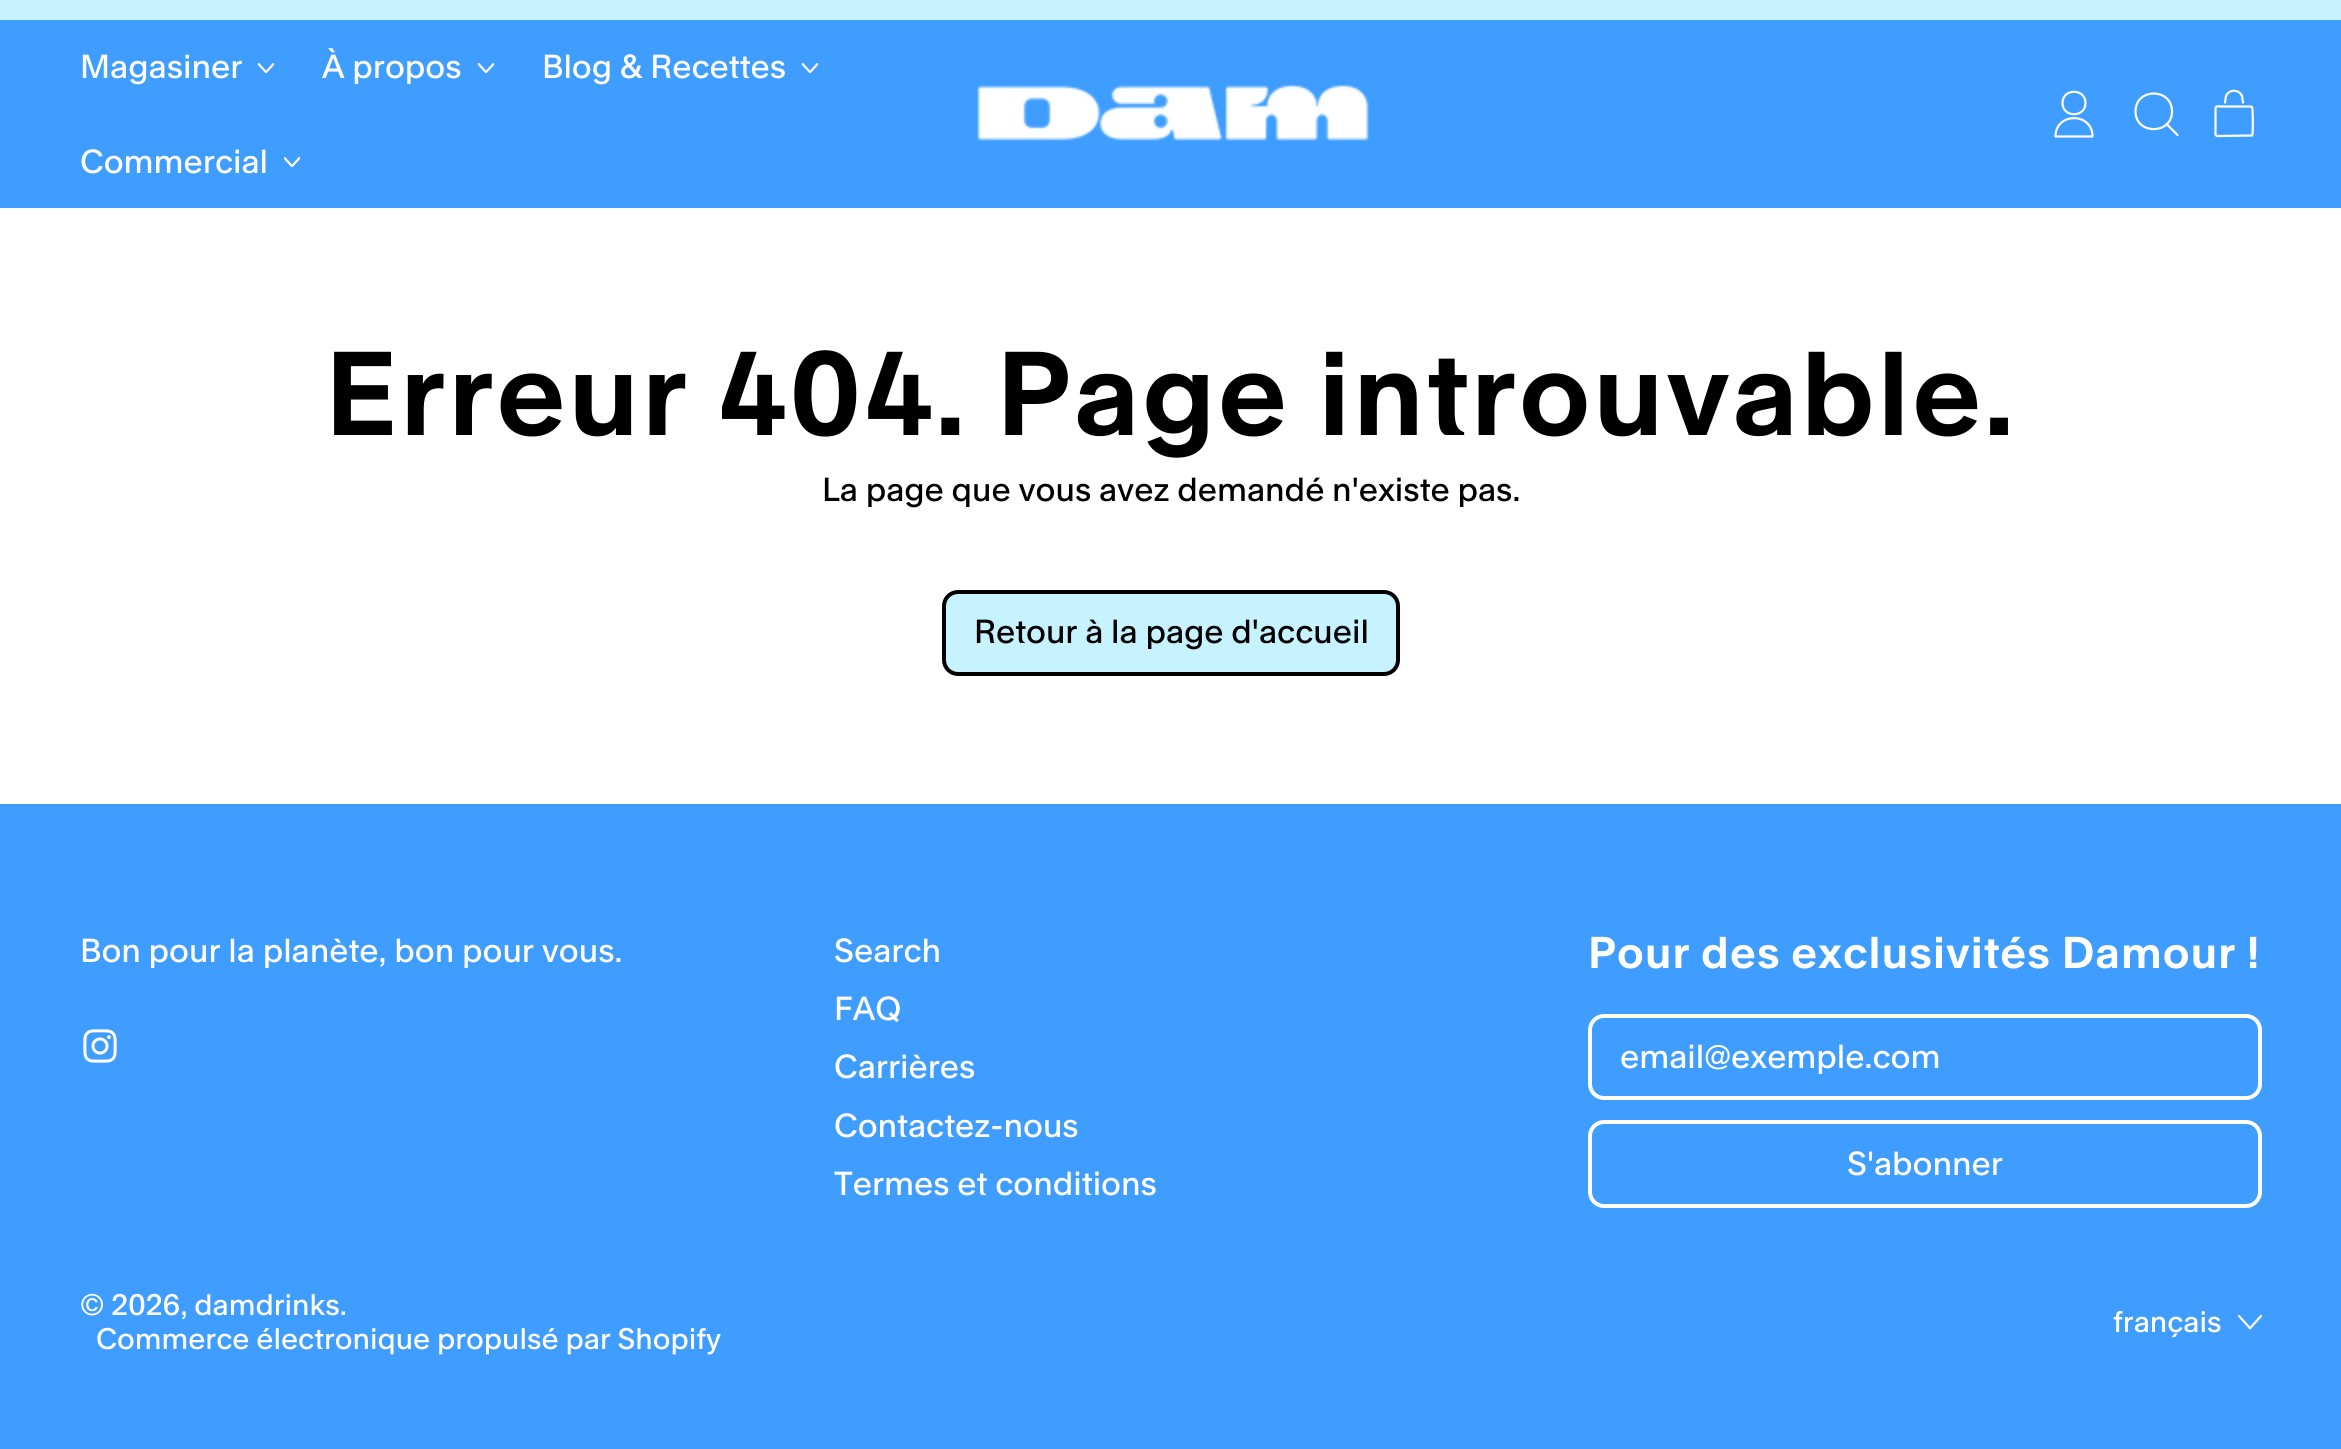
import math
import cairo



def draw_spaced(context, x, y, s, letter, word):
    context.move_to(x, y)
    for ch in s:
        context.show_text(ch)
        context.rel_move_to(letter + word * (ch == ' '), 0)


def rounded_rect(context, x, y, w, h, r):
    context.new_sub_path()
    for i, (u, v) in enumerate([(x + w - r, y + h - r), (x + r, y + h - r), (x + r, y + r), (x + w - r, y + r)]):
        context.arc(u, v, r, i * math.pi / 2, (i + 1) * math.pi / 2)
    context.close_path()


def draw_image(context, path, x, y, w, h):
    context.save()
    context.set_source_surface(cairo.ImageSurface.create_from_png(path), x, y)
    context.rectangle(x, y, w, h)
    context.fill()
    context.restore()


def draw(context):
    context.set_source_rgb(1, 1, 1)
    context.paint()
    context.set_source_rgb(199 / 255, 242 / 255, 1)
    context.rectangle(0, 0, 2341, 20)
    context.fill()
    context.set_source_rgb(62 / 255, 157 / 255, 1)
    context.rectangle(0, 20, 2341, 188)
    context.fill()
    context.save()
    context.rectangle(258, 60, 16, 16)
    context.clip()
    context.new_path()
    context.move_to(258.5, 64)
    context.line_to(264.5, 70.5)
    context.curve_to(266, 72.5, 266, 72.5, 267.5, 70.5)
    context.line_to(273.5, 64)
    context.set_source_rgb(1, 1, 1)
    context.set_line_width(2.2)
    context.set_line_cap(cairo.LineCap.ROUND)
    context.set_line_join(cairo.LineJoin.ROUND)
    context.stroke()
    context.restore()
    context.save()
    context.rectangle(478, 60, 16, 16)
    context.clip()
    context.new_path()
    context.move_to(478.5, 64)
    context.line_to(484.5, 70.5)
    context.curve_to(486, 72.5, 486, 72.5, 487.5, 70.5)
    context.line_to(493.5, 64)
    context.set_source_rgb(1, 1, 1)
    context.set_line_width(2.2)
    context.set_line_cap(cairo.LineCap.ROUND)
    context.set_line_join(cairo.LineJoin.ROUND)
    context.stroke()
    context.restore()
    context.save()
    context.rectangle(802, 60, 16, 16)
    context.clip()
    context.new_path()
    context.move_to(802.5, 64)
    context.line_to(808.5, 70.5)
    context.curve_to(810, 72.5, 810, 72.5, 811.5, 70.5)
    context.line_to(817.5, 64)
    context.set_source_rgb(1, 1, 1)
    context.set_line_width(2.2)
    context.set_line_cap(cairo.LineCap.ROUND)
    context.set_line_join(cairo.LineJoin.ROUND)
    context.stroke()
    context.restore()
    context.save()
    context.rectangle(284, 154, 16, 16)
    context.clip()
    context.new_path()
    context.move_to(284.5, 158)
    context.line_to(290.5, 164.5)
    context.curve_to(292, 166.5, 292, 166.5, 293.5, 164.5)
    context.line_to(299.5, 158)
    context.set_source_rgb(1, 1, 1)
    context.set_line_width(2.2)
    context.set_line_cap(cairo.LineCap.ROUND)
    context.set_line_join(cairo.LineJoin.ROUND)
    context.stroke()
    context.restore()
    draw_image(context, "images/1.png", 977, 84, 392, 57)
    context.new_path()
    context.move_to(2062.5, 103)
    context.curve_to(2062.5, 118, 2085.5, 118, 2085.5, 103)
    context.curve_to(2085.5, 88, 2062.5, 88, 2062.5, 103)
    context.close_path()
    context.move_to(2055.5, 136.5)
    context.curve_to(2055.5, 112, 2092.5, 112, 2092.5, 136.5)
    context.close_path()
    context.set_source_rgb(1, 1, 1)
    context.set_line_width(2.2)
    context.set_line_cap(cairo.LineCap.ROUND)
    context.set_line_join(cairo.LineJoin.ROUND)
    context.stroke()
    context.new_path()
    context.move_to(2135.5, 111.5)
    context.curve_to(2135.5, 135, 2172, 135, 2172, 111.5)
    context.curve_to(2172, 87.5, 2135.5, 87.5, 2135.5, 111.5)
    context.close_path()
    context.move_to(2177.5, 135)
    context.line_to(2166.5, 124)
    context.stroke()
    context.new_path()
    context.move_to(2250.5, 106.5)
    context.line_to(2223, 106.5)
    context.curve_to(2215, 106.5, 2215.5, 105, 2215.5, 112.5)
    context.line_to(2215.5, 129.5)
    context.curve_to(2215.5, 131, 2214.5, 136, 2217.5, 136)
    context.line_to(2252, 135.5)
    context.line_to(2252.5, 134.5)
    context.curve_to(2253, 132, 2253, 108, 2252, 107)
    context.close_path()
    context.move_to(2225, 102.5)
    context.line_to(2226, 96)
    context.curve_to(2229, 89, 2239, 89, 2242, 96)
    context.line_to(2243, 102.5)
    context.stroke()
    context.set_source_rgb(199 / 255, 242 / 255, 1)
    rounded_rect(context, 944, 592, 454, 82, 14)
    context.fill_preserve()
    context.set_source_rgb(0, 0, 0)
    context.set_line_width(4)
    context.set_line_cap(cairo.LineCap.BUTT)
    context.set_line_join(cairo.LineJoin.MITER)
    context.stroke()
    context.set_source_rgb(62 / 255, 157 / 255, 1)
    context.rectangle(0, 804, 2341, 645)
    context.fill()
    draw_image(context, "images/2.png", 83, 1029, 34, 34)
    rounded_rect(context, 1590, 1016, 670, 82, 14)
    context.set_source_rgb(1, 1, 1)
    context.stroke()
    rounded_rect(context, 1590, 1122, 670, 84, 14)
    context.stroke()
    context.new_path()
    context.move_to(2239, 1316)
    context.line_to(2248, 1326)
    context.curve_to(2250.5, 1329, 2249.5, 1329, 2252, 1326)
    context.line_to(2261, 1316)
    context.set_line_width(2.2)
    context.set_line_cap(cairo.LineCap.ROUND)
    context.set_line_join(cairo.LineJoin.ROUND)
    context.stroke()
    context.select_font_face("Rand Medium")
    context.set_font_size(32)
    context.move_to(80, 78)
    context.show_text("Magasiner")
    context.move_to(322, 78)
    context.show_text("À propos")
    context.move_to(542, 78)
    context.show_text("Blog & Recettes")
    context.move_to(80, 173)
    context.show_text("Commercial")
    context.select_font_face("Rand", cairo.FontSlant.NORMAL, cairo.FontWeight.BOLD)
    context.set_font_size(114)
    context.set_source_rgb(0, 0, 0)
    draw_spaced(context, 325, 435, "Erreur 404. Page introuvable.", 2.85, 0)
    context.select_font_face("Rand Medium")
    context.set_font_size(32)
    context.move_to(822, 501)
    context.show_text("La page que vous avez demandé n'existe pas.")
    context.move_to(974, 643)
    context.show_text("Retour à la page d'accueil")
    context.set_source_rgb(1, 1, 1)
    context.move_to(80, 962)
    context.show_text("Bon pour la planète, bon pour vous.")
    context.move_to(834, 962)
    context.show_text("Search")
    context.move_to(834, 1020)
    context.show_text("FAQ")
    context.move_to(834, 1078)
    context.show_text("Carrières")
    context.move_to(834, 1137)
    context.show_text("Contactez-nous")
    context.move_to(834, 1195)
    context.show_text("Termes et conditions")
    context.select_font_face("Rand", cairo.FontSlant.NORMAL, cairo.FontWeight.BOLD)
    context.set_font_size(42.75)
    draw_spaced(context, 1588, 968, "Pour des exclusivités Damour !", 1.1, 0)
    context.select_font_face("Rand Medium")
    context.set_font_size(32)
    context.move_to(1620, 1068)
    context.show_text("email@exemple.com")
    context.move_to(1847, 1175)
    context.show_text("S'abonner")
    context.set_font_size(28.5)
    context.move_to(80, 1315)
    context.show_text("© 2026, damdrinks.")
    context.move_to(96, 1349)
    context.show_text("Commerce électronique propulsé par Shopify")
    context.move_to(2113, 1332)
    context.show_text("français")


surface = cairo.ImageSurface(cairo.Format.RGB24, 2341, 1449)
context = cairo.Context(surface)
options = cairo.FontOptions()
options.set_hint_metrics(cairo.HintMetrics.OFF)
options.set_hint_style(cairo.HintStyle.NONE)
context.set_font_options(options)
context.set_miter_limit(4)
draw(context)
surface.write_to_png("out.png")
